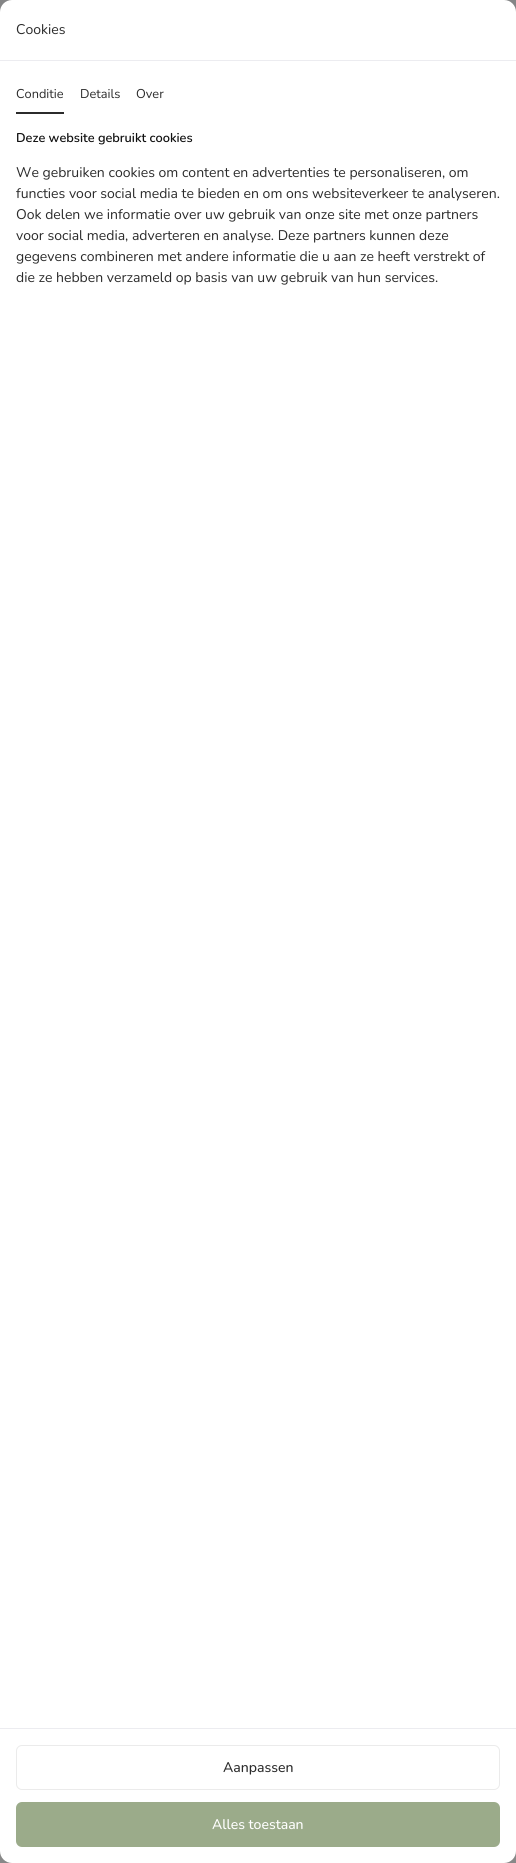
import math
import cairo



def rounded_rect(context, x, y, w, h, r):
    context.new_sub_path()
    for i, (u, v) in enumerate([(x + w - r, y + h - r), (x + r, y + h - r), (x + r, y + r), (x + w - r, y + r)]):
        context.arc(u, v, r, i * math.pi / 2, (i + 1) * math.pi / 2)
    context.close_path()


def draw(context):
    context.set_source_rgb(136 / 255, 136 / 255, 136 / 255)
    context.paint()
    context.set_source_rgb(132 / 255, 133 / 255, 134 / 255)
    context.rectangle(0, 0, 516, 12)
    context.fill()
    context.set_source_rgb(1, 1, 1)
    rounded_rect(context, 0, 0, 516, 1863, 12)
    context.fill()
    context.set_source_rgb(236 / 255, 236 / 255, 240 / 255)
    context.rectangle(0, 60, 516, 1)
    context.fill()
    context.set_source_rgb(43 / 255, 43 / 255, 43 / 255)
    context.rectangle(16, 112, 48, 2)
    context.fill()
    context.set_source_rgb(236 / 255, 236 / 255, 240 / 255)
    context.rectangle(0, 1728, 516, 1)
    context.fill()
    rounded_rect(context, 16.5, 1745.5, 483, 44, 5.5)
    context.set_source_rgb(235 / 255, 235 / 255, 235 / 255)
    context.set_line_width(1)
    context.stroke()
    context.set_source_rgb(155 / 255, 171 / 255, 138 / 255)
    rounded_rect(context, 16, 1802, 484, 45, 6)
    context.fill()
    context.select_font_face("Nunito")
    context.set_font_size(14)
    context.set_source_rgb(43 / 255, 43 / 255, 43 / 255)
    context.move_to(16, 34)
    context.show_text("Cookies")
    context.set_font_size(12.75)
    context.move_to(16, 98)
    context.show_text("Conditie")
    context.move_to(80, 98)
    context.show_text("Details")
    context.move_to(136, 98)
    context.show_text("Over")
    context.select_font_face("Nunito SemiBold")
    context.set_source_rgb(17 / 255, 17 / 255, 17 / 255)
    context.move_to(16, 142)
    context.show_text("Deze website gebruikt cookies")
    context.select_font_face("Nunito")
    context.set_font_size(14)
    context.set_source_rgb(43 / 255, 43 / 255, 43 / 255)
    context.move_to(16, 177)
    context.show_text("We gebruiken cookies om content en advertenties te personaliseren, om")
    context.move_to(16, 198)
    context.show_text("functies voor social media te bieden en om ons websiteverkeer te analyseren.")
    context.move_to(16, 219)
    context.show_text("Ook delen we informatie over uw gebruik van onze site met onze partners")
    context.move_to(16, 240)
    context.show_text("voor social media, adverteren en analyse. Deze partners kunnen deze")
    context.move_to(16, 261)
    context.show_text("gegevens combineren met andere informatie die u aan ze heeft verstrekt of")
    context.move_to(16, 282)
    context.show_text("die ze hebben verzameld op basis van uw gebruik van hun services.")
    context.select_font_face("Nunito Medium")
    context.move_to(223, 1772)
    context.show_text("Aanpassen")
    context.set_source_rgb(1, 1, 1)
    context.move_to(212, 1829)
    context.show_text("Alles toestaan")


surface = cairo.ImageSurface(cairo.Format.RGB24, 516, 1863)
context = cairo.Context(surface)
options = cairo.FontOptions()
options.set_hint_metrics(cairo.HintMetrics.OFF)
options.set_hint_style(cairo.HintStyle.NONE)
context.set_font_options(options)
context.set_miter_limit(4)
draw(context)
surface.write_to_png("out.png")
